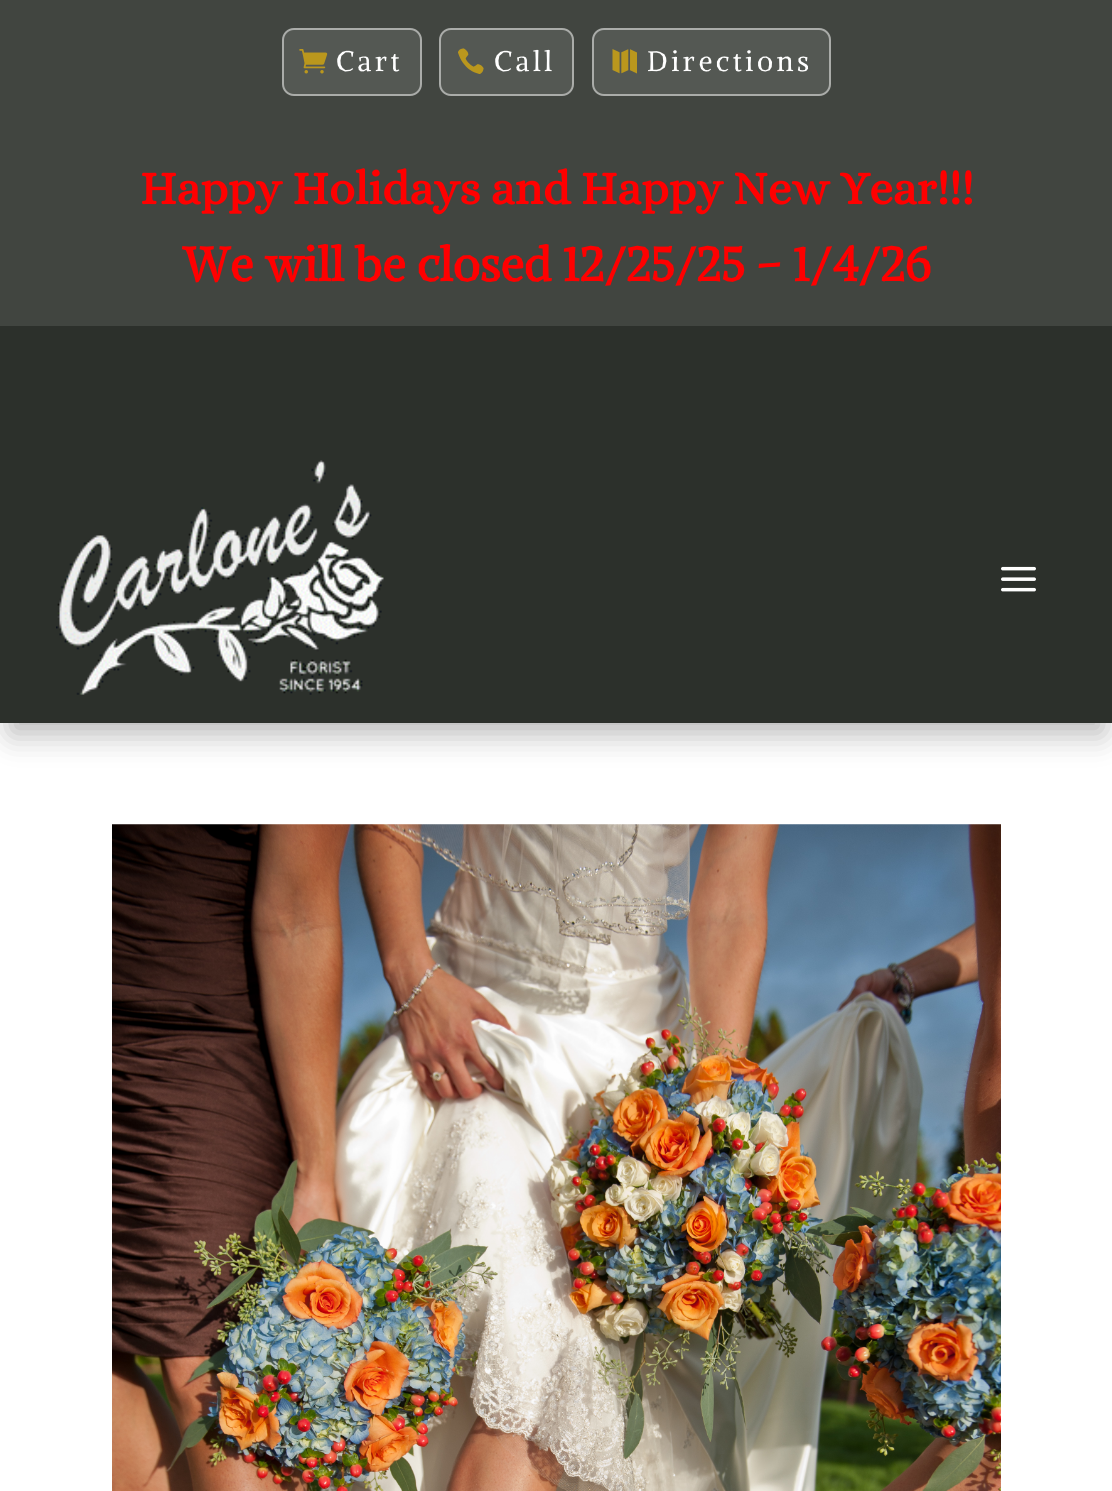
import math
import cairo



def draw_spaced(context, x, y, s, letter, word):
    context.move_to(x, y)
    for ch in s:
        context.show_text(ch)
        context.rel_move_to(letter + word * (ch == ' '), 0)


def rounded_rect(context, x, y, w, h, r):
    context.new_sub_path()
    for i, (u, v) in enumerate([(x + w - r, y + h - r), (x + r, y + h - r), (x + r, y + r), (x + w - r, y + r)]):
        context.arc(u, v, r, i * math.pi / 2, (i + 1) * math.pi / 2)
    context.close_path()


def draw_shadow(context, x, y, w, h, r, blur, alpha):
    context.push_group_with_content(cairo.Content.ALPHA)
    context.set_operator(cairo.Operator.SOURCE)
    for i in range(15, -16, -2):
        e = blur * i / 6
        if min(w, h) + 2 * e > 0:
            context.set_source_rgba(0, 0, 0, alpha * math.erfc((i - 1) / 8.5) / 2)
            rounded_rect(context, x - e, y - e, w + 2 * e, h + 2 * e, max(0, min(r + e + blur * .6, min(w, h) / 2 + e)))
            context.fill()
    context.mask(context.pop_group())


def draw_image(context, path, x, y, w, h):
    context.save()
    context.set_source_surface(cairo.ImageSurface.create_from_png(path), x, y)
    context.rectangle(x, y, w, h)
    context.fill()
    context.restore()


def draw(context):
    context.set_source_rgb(1, 1, 1)
    context.paint()
    context.set_source_rgb(0, 0, 0)
    draw_shadow(context, 11, 32, 1092, 701, 0, 16, 0.3)
    context.set_source_rgb(44 / 255, 48 / 255, 43 / 255)
    context.rectangle(0, 326, 1112, 397)
    context.fill()
    context.set_source_rgb(65 / 255, 69 / 255, 64 / 255)
    context.rectangle(0, 0, 1112, 326)
    context.fill()
    context.set_source_rgb(84 / 255, 88 / 255, 83 / 255)
    rounded_rect(context, 282, 28, 140, 68, 12)
    context.fill()
    rounded_rect(context, 283, 29, 138, 66, 11)
    context.set_source_rgba(1, 1, 1, 0.5)
    context.stroke()
    draw_image(context, "images/1.png", 299, 49, 29, 25)
    context.set_source_rgb(84 / 255, 88 / 255, 83 / 255)
    rounded_rect(context, 439, 28, 135, 68, 12)
    context.fill()
    rounded_rect(context, 440, 29, 133, 66, 11)
    context.set_source_rgba(1, 1, 1, 0.5)
    context.stroke()
    draw_image(context, "images/2.png", 458, 48, 26, 26)
    context.set_source_rgb(84 / 255, 88 / 255, 83 / 255)
    rounded_rect(context, 592, 28, 239, 68, 12)
    context.fill()
    rounded_rect(context, 593, 29, 237, 66, 11)
    context.set_source_rgba(1, 1, 1, 0.5)
    context.stroke()
    draw_image(context, "images/3.png", 612, 49, 25, 25)
    draw_image(context, "images/4.png", 56, 460, 328, 235)
    draw_image(context, "images/5.png", 1001, 566, 35, 26)
    draw_image(context, "images/6.png", 112, 824, 889, 667)
    context.select_font_face("Alike Angular")
    context.set_font_size(28)
    context.set_source_rgb(1, 1, 1)
    draw_spaced(context, 336, 71, "Cart", 3.5, 0)
    draw_spaced(context, 494, 71, "Call", 3.5, 0)
    draw_spaced(context, 647, 71, "Directions", 3.5, 0)
    context.select_font_face("Alice", cairo.FontSlant.NORMAL, cairo.FontWeight.BOLD)
    context.set_font_size(47.25)
    context.set_source_rgb(1, 0, 0)
    context.move_to(140, 204)
    context.show_text("Happy Holidays and Happy New Year!!!")
    context.select_font_face("Alike Angular", cairo.FontSlant.NORMAL, cairo.FontWeight.BOLD)
    context.move_to(183, 281)
    context.show_text("We will be closed 12/25/25 – 1/4/26")


surface = cairo.ImageSurface(cairo.Format.RGB24, 1112, 1491)
context = cairo.Context(surface)
options = cairo.FontOptions()
options.set_hint_metrics(cairo.HintMetrics.OFF)
options.set_hint_style(cairo.HintStyle.NONE)
context.set_font_options(options)
context.set_miter_limit(4)
draw(context)
surface.write_to_png("out.png")
